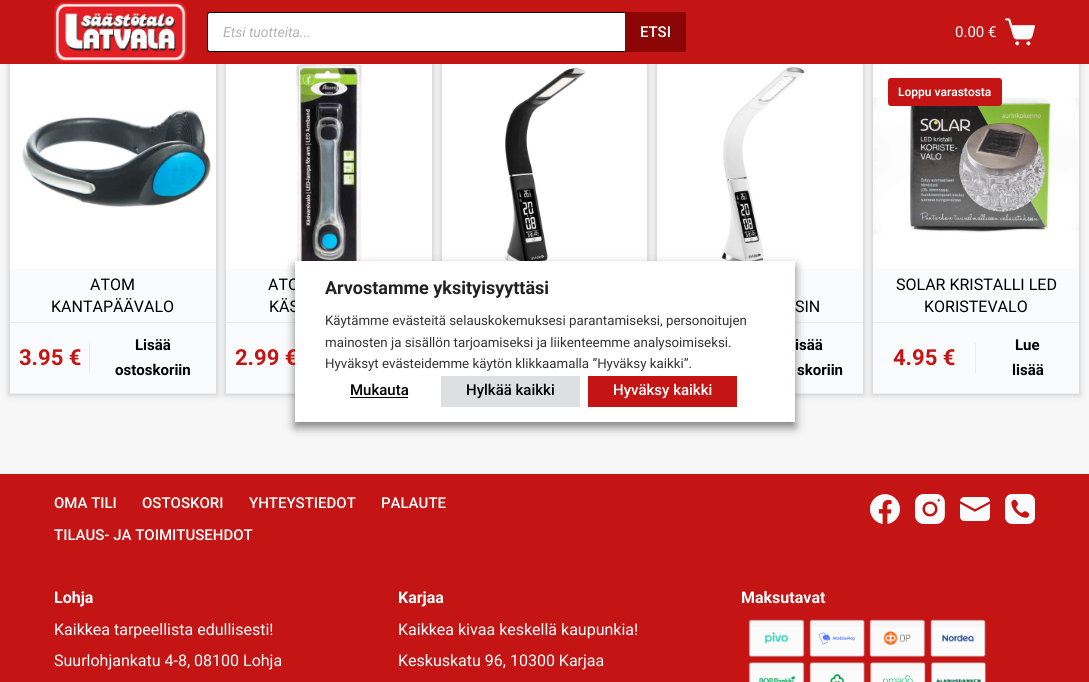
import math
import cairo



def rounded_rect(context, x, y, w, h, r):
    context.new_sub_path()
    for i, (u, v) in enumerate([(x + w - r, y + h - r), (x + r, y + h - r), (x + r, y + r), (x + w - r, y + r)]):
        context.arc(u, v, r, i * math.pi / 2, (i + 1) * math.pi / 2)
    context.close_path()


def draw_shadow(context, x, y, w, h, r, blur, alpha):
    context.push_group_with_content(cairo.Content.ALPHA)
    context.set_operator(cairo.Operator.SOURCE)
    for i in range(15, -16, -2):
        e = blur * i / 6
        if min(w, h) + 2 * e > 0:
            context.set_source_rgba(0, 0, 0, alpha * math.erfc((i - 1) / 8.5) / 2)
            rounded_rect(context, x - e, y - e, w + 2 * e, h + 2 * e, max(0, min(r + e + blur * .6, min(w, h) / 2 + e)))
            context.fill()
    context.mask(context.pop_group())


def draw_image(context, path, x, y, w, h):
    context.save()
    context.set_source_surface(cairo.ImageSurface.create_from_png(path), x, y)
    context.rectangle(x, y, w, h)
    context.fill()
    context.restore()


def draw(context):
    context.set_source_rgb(247 / 255, 247 / 255, 247 / 255)
    context.paint()
    context.set_source_rgb(0, 0, 0)
    draw_shadow(context, 9, 62, 208, 333, 0, 3, 0.2)
    context.set_source_rgb(250 / 255, 251 / 255, 252 / 255)
    context.rectangle(10, 269, 206, 124)
    context.fill()
    draw_image(context, "images/3.png", 10, 64, 206, 205)
    context.set_source_rgb(238 / 255, 238 / 255, 239 / 255)
    context.rectangle(10, 322, 206, 1)
    context.fill()
    context.rectangle(10, 393, 206, 1)
    context.fill()
    context.set_source_rgb(0, 0, 0)
    draw_shadow(context, 225, 62, 208, 333, 0, 3, 0.2)
    draw_image(context, "images/4.png", 226, 64, 206, 205)
    draw_shadow(context, 441, 62, 207, 333, 0, 3, 0.2)
    draw_image(context, "images/5.png", 442, 64, 205, 197)
    draw_shadow(context, 656, 62, 208, 333, 0, 3, 0.2)
    context.set_source_rgb(250 / 255, 251 / 255, 252 / 255)
    context.rectangle(795, 269, 68, 124)
    context.fill()
    draw_image(context, "images/6.png", 657, 64, 206, 205)
    context.set_source_rgb(238 / 255, 238 / 255, 239 / 255)
    context.rectangle(795, 322, 68, 1)
    context.fill()
    context.rectangle(795, 393, 68, 1)
    context.fill()
    context.set_source_rgb(0, 0, 0)
    draw_shadow(context, 872, 62, 208, 333, 0, 3, 0.2)
    context.set_source_rgb(196 / 255, 20 / 255, 20 / 255)
    context.rectangle(0, 0, 1089, 64)
    context.fill()
    draw_image(context, "images/1.png", 54, 2, 133, 60)
    context.set_source_rgb(1, 1, 1)
    rounded_rect(context, 207.5, 12.5, 478, 39, 2.5)
    context.fill_preserve()
    context.set_source_rgb(2 / 255, 2 / 255, 2 / 255)
    context.set_line_width(1)
    context.stroke()
    context.set_source_rgb(140 / 255, 5 / 255, 5 / 255)
    context.new_path()
    context.move_to(625, 12)
    context.line_to(684, 12)
    context.curve_to(685, 12, 686, 13, 686, 14)
    context.line_to(686, 50)
    context.curve_to(686, 51, 685, 52, 684, 52)
    context.line_to(625, 52)
    context.close_path()
    context.fill()
    draw_image(context, "images/2.png", 1005, 18, 30, 28)
    context.set_source_rgb(238 / 255, 238 / 255, 239 / 255)
    context.rectangle(89, 343, 1, 30)
    context.fill()
    context.set_source_rgb(250 / 255, 251 / 255, 252 / 255)
    context.rectangle(226, 269, 69, 124)
    context.fill()
    context.set_source_rgb(238 / 255, 238 / 255, 239 / 255)
    context.rectangle(226, 322, 69, 1)
    context.fill()
    context.rectangle(226, 393, 69, 1)
    context.fill()
    context.set_source_rgb(250 / 255, 251 / 255, 252 / 255)
    context.rectangle(873, 269, 206, 124)
    context.fill()
    draw_image(context, "images/7.png", 873, 64, 206, 205)
    context.set_source_rgb(196 / 255, 20 / 255, 20 / 255)
    rounded_rect(context, 888, 78, 114, 28, 3)
    context.fill()
    context.set_source_rgb(238 / 255, 238 / 255, 239 / 255)
    context.rectangle(873, 322, 206, 1)
    context.fill()
    context.rectangle(873, 393, 206, 1)
    context.fill()
    context.rectangle(975, 343, 1, 30)
    context.fill()
    context.set_source_rgb(196 / 255, 20 / 255, 20 / 255)
    context.rectangle(0, 474, 1089, 208)
    context.fill()
    draw_image(context, "images/8.png", 870, 494, 30, 30)
    draw_image(context, "images/9.png", 915, 494, 30, 30)
    draw_image(context, "images/10.png", 960, 497, 30, 24)
    draw_image(context, "images/11.png", 1005, 494, 30, 30)
    draw_image(context, "images/12.png", 748, 619, 238, 63)
    context.set_source_rgb(0, 0, 0)
    draw_shadow(context, 295, 266, 500, 161, 0, 5, 0.5)
    context.select_font_face("Roboto", cairo.FontSlant.ITALIC)
    context.set_font_size(14)
    context.set_source_rgb(179 / 255, 179 / 255, 179 / 255)
    context.move_to(223, 37)
    context.show_text("Etsi tuotteita...")
    context.select_font_face("Roboto Medium")
    context.set_font_size(15)
    context.set_source_rgb(1, 1, 1)
    context.move_to(640, 37)
    context.show_text("ETSI")
    context.select_font_face("Roboto")
    context.move_to(955, 37)
    context.show_text("0.00 €")
    context.set_font_size(16)
    context.set_source_rgb(0, 0, 0)
    context.move_to(90, 290)
    context.show_text("ATOM")
    context.move_to(51, 312)
    context.show_text("KANTAPÄÄVALO")
    context.select_font_face("Roboto", cairo.FontSlant.NORMAL, cairo.FontWeight.BOLD)
    context.set_font_size(22)
    context.set_source_rgb(196 / 255, 20 / 255, 20 / 255)
    context.move_to(19, 365)
    context.show_text("3.95 €")
    context.set_font_size(15)
    context.set_source_rgb(0, 0, 0)
    context.move_to(135, 350)
    context.show_text("Lisää")
    context.move_to(115, 375)
    context.show_text("ostoskoriin")
    context.select_font_face("Roboto")
    context.set_font_size(16)
    context.move_to(268, 290)
    context.show_text("ATO")
    context.move_to(269, 312)
    context.show_text("KÄS")
    context.select_font_face("Roboto", cairo.FontSlant.NORMAL, cairo.FontWeight.BOLD)
    context.set_font_size(22)
    context.set_source_rgb(196 / 255, 20 / 255, 20 / 255)
    context.move_to(235, 365)
    context.show_text("2.99 €")
    context.select_font_face("Roboto")
    context.set_font_size(16)
    context.set_source_rgb(0, 0, 0)
    context.move_to(795, 312)
    context.show_text("SIN")
    context.select_font_face("Roboto", cairo.FontSlant.NORMAL, cairo.FontWeight.BOLD)
    context.set_font_size(15)
    context.move_to(795, 350)
    context.show_text("isää")
    context.move_to(797, 375)
    context.show_text("skoriin")
    context.select_font_face("Roboto SemiBold")
    context.set_font_size(12)
    context.set_source_rgb(1, 1, 1)
    context.move_to(898, 96)
    context.show_text("Loppu varastosta")
    context.select_font_face("Roboto")
    context.set_font_size(16)
    context.set_source_rgb(0, 0, 0)
    context.move_to(896, 290)
    context.show_text("SOLAR KRISTALLI LED")
    context.move_to(924, 312)
    context.show_text("KORISTEVALO")
    context.select_font_face("Roboto", cairo.FontSlant.NORMAL, cairo.FontWeight.BOLD)
    context.set_font_size(22)
    context.set_source_rgb(196 / 255, 20 / 255, 20 / 255)
    context.move_to(893, 365)
    context.show_text("4.95 €")
    context.set_font_size(15)
    context.set_source_rgb(0, 0, 0)
    context.move_to(1015, 350)
    context.show_text("Lue")
    context.move_to(1012, 375)
    context.show_text("lisää")
    context.select_font_face("Roboto Medium")
    context.set_source_rgb(1, 1, 1)
    context.move_to(54, 508)
    context.show_text("OMA TILI")
    context.move_to(142, 508)
    context.show_text("OSTOSKORI")
    context.move_to(249, 508)
    context.show_text("YHTEYSTIEDOT")
    context.move_to(381, 508)
    context.show_text("PALAUTE")
    context.move_to(54, 540)
    context.show_text("TILAUS- JA TOIMITUSEHDOT")
    context.select_font_face("Roboto", cairo.FontSlant.NORMAL, cairo.FontWeight.BOLD)
    context.set_font_size(16)
    context.move_to(54, 603)
    context.show_text("Lohja")
    context.select_font_face("Roboto")
    context.move_to(54, 635)
    context.show_text("Kaikkea tarpeellista edullisesti!")
    context.move_to(54, 666)
    context.show_text("Suurlohjankatu 4-8, 08100 Lohja")
    context.select_font_face("Roboto", cairo.FontSlant.NORMAL, cairo.FontWeight.BOLD)
    context.move_to(398, 603)
    context.show_text("Karjaa")
    context.select_font_face("Roboto")
    context.move_to(398, 635)
    context.show_text("Kaikkea kivaa keskellä kaupunkia!")
    context.move_to(398, 666)
    context.show_text("Keskuskatu 96, 10300 Karjaa")
    context.select_font_face("Roboto", cairo.FontSlant.NORMAL, cairo.FontWeight.BOLD)
    context.move_to(741, 603)
    context.show_text("Maksutavat")
    context.rectangle(295, 261, 500, 161)
    context.fill()
    context.set_font_size(18)
    context.set_source_rgb(33 / 255, 33 / 255, 33 / 255)
    context.move_to(325, 294)
    context.show_text("Arvostamme yksityisyyttäsi")
    context.select_font_face("Roboto")
    context.set_font_size(13.3)
    context.set_source_rgb(51 / 255, 51 / 255, 51 / 255)
    context.move_to(325, 325)
    context.show_text("Käytämme evästeitä selauskokemuksesi parantamiseksi, personoitujen")
    context.move_to(325, 347)
    context.show_text("mainosten ja sisällön tarjoamiseksi ja liikenteemme analysoimiseksi.")
    context.move_to(325, 368)
    context.show_text("Hyväksyt evästeidemme käytön klikkaamalla ”Hyväksy kaikki”.")
    context.select_font_face("Roboto Medium")
    context.set_font_size(15)
    context.set_source_rgb(0, 0, 0)
    context.move_to(350, 395)
    context.show_text("Mukauta")
    context.rectangle(350, 397, 58, 1)
    context.fill()
    context.set_source_rgb(222 / 255, 223 / 255, 224 / 255)
    context.rectangle(441, 376, 139, 31)
    context.fill()
    context.set_source_rgb(0, 0, 0)
    context.move_to(466, 395)
    context.show_text("Hylkää kaikki")
    context.set_source_rgb(196 / 255, 20 / 255, 20 / 255)
    context.rectangle(588, 376, 149, 31)
    context.fill()
    context.set_source_rgb(1, 1, 1)
    context.move_to(613, 395)
    context.show_text("Hyväksy kaikki")


surface = cairo.ImageSurface(cairo.Format.RGB24, 1089, 682)
context = cairo.Context(surface)
options = cairo.FontOptions()
options.set_hint_metrics(cairo.HintMetrics.OFF)
options.set_hint_style(cairo.HintStyle.NONE)
context.set_font_options(options)
context.set_miter_limit(4)
draw(context)
surface.write_to_png("out.png")
